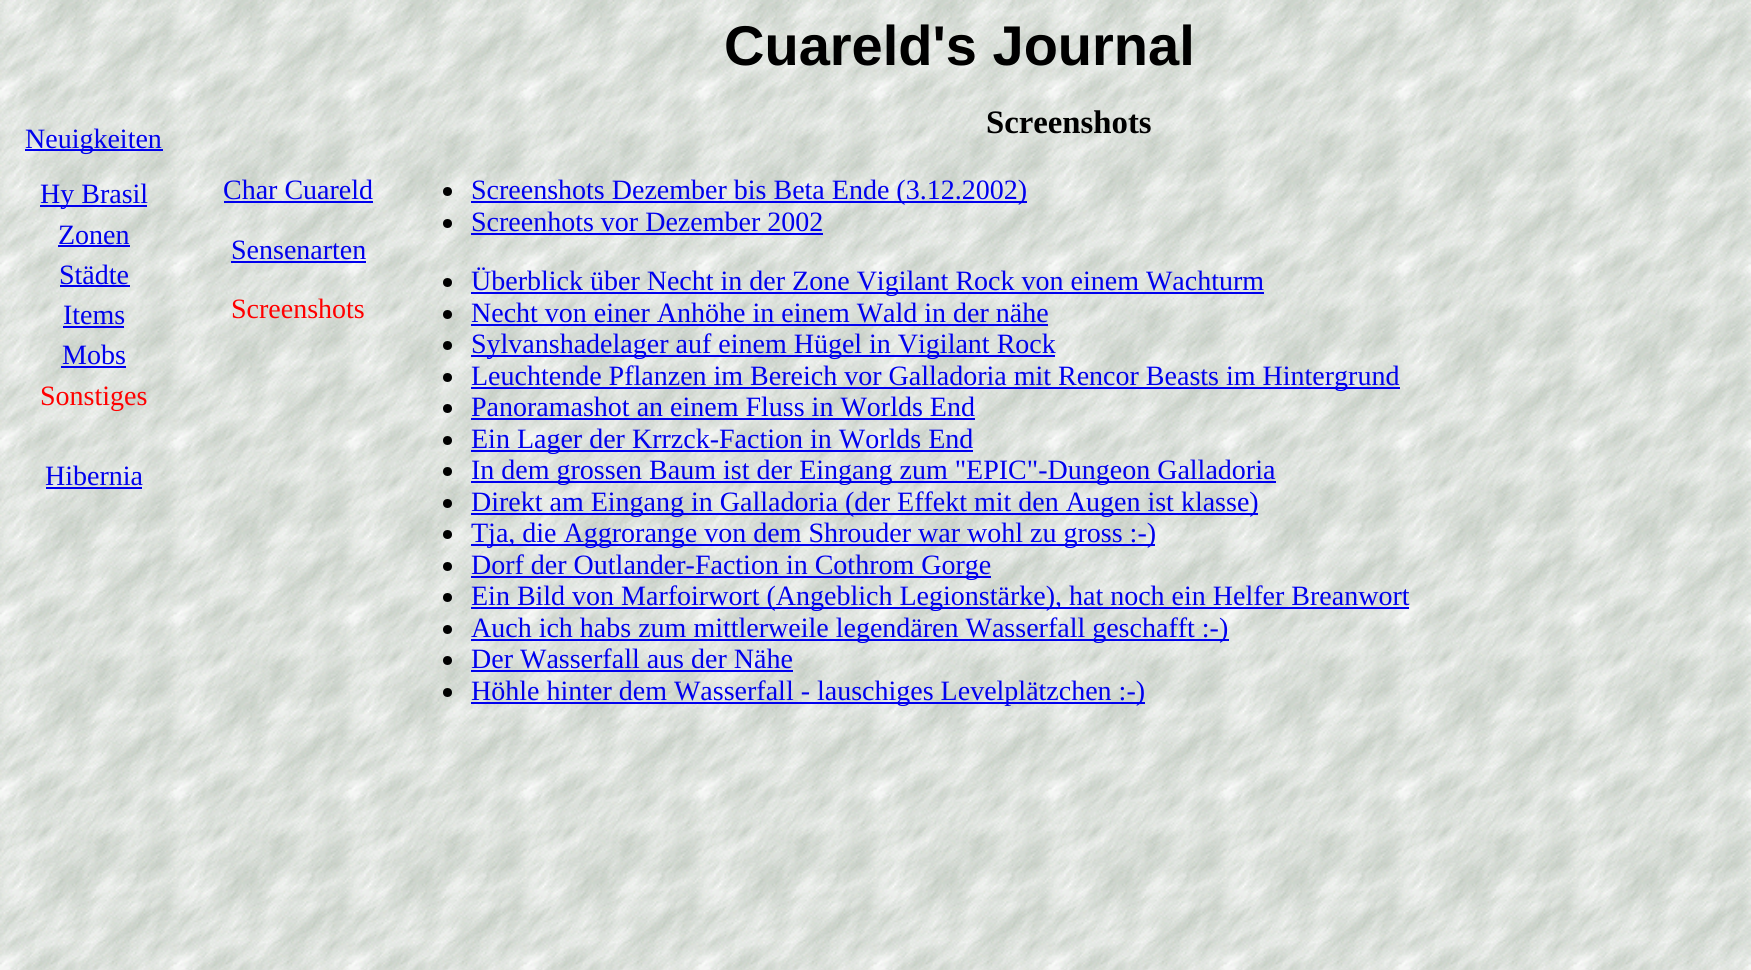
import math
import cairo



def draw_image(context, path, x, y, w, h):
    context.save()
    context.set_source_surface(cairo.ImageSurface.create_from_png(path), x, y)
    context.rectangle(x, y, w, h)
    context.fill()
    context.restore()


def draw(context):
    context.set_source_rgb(1, 1, 1)
    context.paint()
    draw_image(context, "images/1.png", 0, 0, 1751, 970)
    context.set_source_rgb(0, 0, 238 / 255)
    context.rectangle(25, 149, 138, 2)
    context.fill()
    context.rectangle(40, 205, 107, 2)
    context.fill()
    context.rectangle(224, 201, 149, 2)
    context.fill()
    context.rectangle(231, 261, 135, 2)
    context.fill()
    context.set_source_rgb(0, 0, 0)
    context.arc(447.5, 191.5, 4.5, 0, 2 * math.pi)
    context.fill()
    context.set_source_rgb(0, 0, 238 / 255)
    context.rectangle(471, 201, 556, 2)
    context.fill()
    context.set_source_rgb(0, 0, 0)
    context.arc(447.5, 223.5, 4.5, 0, 2 * math.pi)
    context.fill()
    context.set_source_rgb(0, 0, 238 / 255)
    context.rectangle(471, 233, 352, 2)
    context.fill()
    context.set_source_rgb(0, 0, 0)
    context.arc(447.5, 282.5, 4.5, 0, 2 * math.pi)
    context.fill()
    context.set_source_rgb(0, 0, 238 / 255)
    context.rectangle(471, 292, 793, 2)
    context.fill()
    context.set_source_rgb(0, 0, 0)
    context.arc(447.5, 314.5, 4.5, 0, 2 * math.pi)
    context.fill()
    context.set_source_rgb(0, 0, 238 / 255)
    context.rectangle(471, 324, 577, 2)
    context.fill()
    context.set_source_rgb(0, 0, 0)
    context.arc(447.5, 345.5, 4.5, 0, 2 * math.pi)
    context.fill()
    context.set_source_rgb(0, 0, 238 / 255)
    context.rectangle(471, 355, 584, 2)
    context.fill()
    context.set_source_rgb(0, 0, 0)
    context.arc(447.5, 377.5, 4.5, 0, 2 * math.pi)
    context.fill()
    context.set_source_rgb(0, 0, 238 / 255)
    context.rectangle(471, 387, 929, 2)
    context.fill()
    context.set_source_rgb(0, 0, 0)
    context.arc(447.5, 408.5, 4.5, 0, 2 * math.pi)
    context.fill()
    context.set_source_rgb(0, 0, 238 / 255)
    context.rectangle(471, 418, 504, 2)
    context.fill()
    context.set_source_rgb(0, 0, 0)
    context.arc(447.5, 440.5, 4.5, 0, 2 * math.pi)
    context.fill()
    context.set_source_rgb(0, 0, 238 / 255)
    context.rectangle(471, 450, 502, 2)
    context.fill()
    context.set_source_rgb(0, 0, 0)
    context.arc(447.5, 471.5, 4.5, 0, 2 * math.pi)
    context.fill()
    context.set_source_rgb(0, 0, 238 / 255)
    context.rectangle(471, 481, 805, 2)
    context.fill()
    context.set_source_rgb(0, 0, 0)
    context.arc(447.5, 503.5, 4.5, 0, 2 * math.pi)
    context.fill()
    context.set_source_rgb(0, 0, 238 / 255)
    context.rectangle(471, 513, 787, 2)
    context.fill()
    context.set_source_rgb(0, 0, 0)
    context.arc(447.5, 534.5, 4.5, 0, 2 * math.pi)
    context.fill()
    context.set_source_rgb(0, 0, 238 / 255)
    context.rectangle(471, 544, 684, 2)
    context.fill()
    context.set_source_rgb(0, 0, 0)
    context.arc(447.5, 566.5, 4.5, 0, 2 * math.pi)
    context.fill()
    context.set_source_rgb(0, 0, 238 / 255)
    context.rectangle(471, 576, 520, 2)
    context.fill()
    context.set_source_rgb(0, 0, 0)
    context.arc(447.5, 597.5, 4.5, 0, 2 * math.pi)
    context.fill()
    context.set_source_rgb(0, 0, 238 / 255)
    context.rectangle(471, 607, 938, 2)
    context.fill()
    context.set_source_rgb(0, 0, 0)
    context.arc(447.5, 629.5, 4.5, 0, 2 * math.pi)
    context.fill()
    context.set_source_rgb(0, 0, 238 / 255)
    context.rectangle(471, 639, 758, 2)
    context.fill()
    context.set_source_rgb(0, 0, 0)
    context.arc(447.5, 660.5, 4.5, 0, 2 * math.pi)
    context.fill()
    context.set_source_rgb(0, 0, 238 / 255)
    context.rectangle(471, 670, 322, 2)
    context.fill()
    context.set_source_rgb(0, 0, 0)
    context.arc(447.5, 692.5, 4.5, 0, 2 * math.pi)
    context.fill()
    context.set_source_rgb(0, 0, 238 / 255)
    context.rectangle(471, 702, 674, 2)
    context.fill()
    context.rectangle(58, 245, 72, 2)
    context.fill()
    context.rectangle(60, 285, 70, 2)
    context.fill()
    context.rectangle(63, 326, 61, 2)
    context.fill()
    context.rectangle(61, 366, 65, 2)
    context.fill()
    context.rectangle(46, 487, 96, 2)
    context.fill()
    context.select_font_face("Liberation Sans", cairo.FontSlant.NORMAL, cairo.FontWeight.BOLD)
    context.set_font_size(56)
    context.set_source_rgb(0, 0, 0)
    context.move_to(724, 65)
    context.show_text("Cuareld's Journal")
    context.select_font_face("Liberation Serif", cairo.FontSlant.NORMAL, cairo.FontWeight.BOLD)
    context.set_font_size(32.75)
    context.move_to(986, 133)
    context.show_text("Screenshots")
    context.select_font_face("Liberation Serif")
    context.set_font_size(28)
    context.set_source_rgb(0, 0, 238 / 255)
    context.move_to(25, 148)
    context.show_text("Neuigkeiten")
    context.move_to(40, 203)
    context.show_text("Hy Brasil")
    context.move_to(223, 199)
    context.show_text("Char Cuareld")
    context.move_to(231, 259)
    context.show_text("Sensenarten")
    context.set_source_rgb(1, 0, 0)
    context.move_to(231, 318)
    context.show_text("Screenshots")
    context.set_source_rgb(0, 0, 238 / 255)
    context.move_to(471, 199)
    context.show_text("Screenshots Dezember bis Beta Ende (3.12.2002)")
    context.move_to(471, 231)
    context.show_text("Screenhots vor Dezember 2002")
    context.move_to(471, 290)
    context.show_text("Überblick über Necht in der Zone Vigilant Rock von einem Wachturm")
    context.move_to(471, 322)
    context.show_text("Necht von einer Anhöhe in einem Wald in der nähe")
    context.move_to(471, 353)
    context.show_text("Sylvanshadelager auf einem Hügel in Vigilant Rock")
    context.move_to(471, 385)
    context.show_text("Leuchtende Pflanzen im Bereich vor Galladoria mit Rencor Beasts im Hintergrund")
    context.move_to(471, 416)
    context.show_text("Panoramashot an einem Fluss in Worlds End")
    context.move_to(471, 448)
    context.show_text("Ein Lager der Krrzck-Faction in Worlds End")
    context.move_to(471, 479)
    context.show_text("In dem grossen Baum ist der Eingang zum \"EPIC\"-Dungeon Galladoria")
    context.move_to(471, 511)
    context.show_text("Direkt am Eingang in Galladoria (der Effekt mit den Augen ist klasse)")
    context.move_to(471, 542)
    context.show_text("Tja, die Aggrorange von dem Shrouder war wohl zu gross :-)")
    context.move_to(471, 574)
    context.show_text("Dorf der Outlander-Faction in Cothrom Gorge")
    context.move_to(471, 605)
    context.show_text("Ein Bild von Marfoirwort (Angeblich Legionstärke), hat noch ein Helfer Breanwort")
    context.move_to(471, 637)
    context.show_text("Auch ich habs zum mittlerweile legendären Wasserfall geschafft :-)")
    context.move_to(471, 668)
    context.show_text("Der Wasserfall aus der Nähe")
    context.move_to(471, 700)
    context.show_text("Höhle hinter dem Wasserfall - lauschiges Levelplätzchen :-)")
    context.move_to(58, 244)
    context.show_text("Zonen")
    context.move_to(59, 284)
    context.show_text("Städte")
    context.move_to(63, 324)
    context.show_text("Items")
    context.move_to(62, 364)
    context.show_text("Mobs")
    context.set_source_rgb(1, 0, 0)
    context.move_to(40, 405)
    context.show_text("Sonstiges")
    context.set_source_rgb(0, 0, 238 / 255)
    context.move_to(45, 485)
    context.show_text("Hibernia")


surface = cairo.ImageSurface(cairo.Format.RGB24, 1751, 970)
context = cairo.Context(surface)
options = cairo.FontOptions()
options.set_hint_metrics(cairo.HintMetrics.OFF)
options.set_hint_style(cairo.HintStyle.NONE)
context.set_font_options(options)
context.set_miter_limit(4)
draw(context)
surface.write_to_png("out.png")
